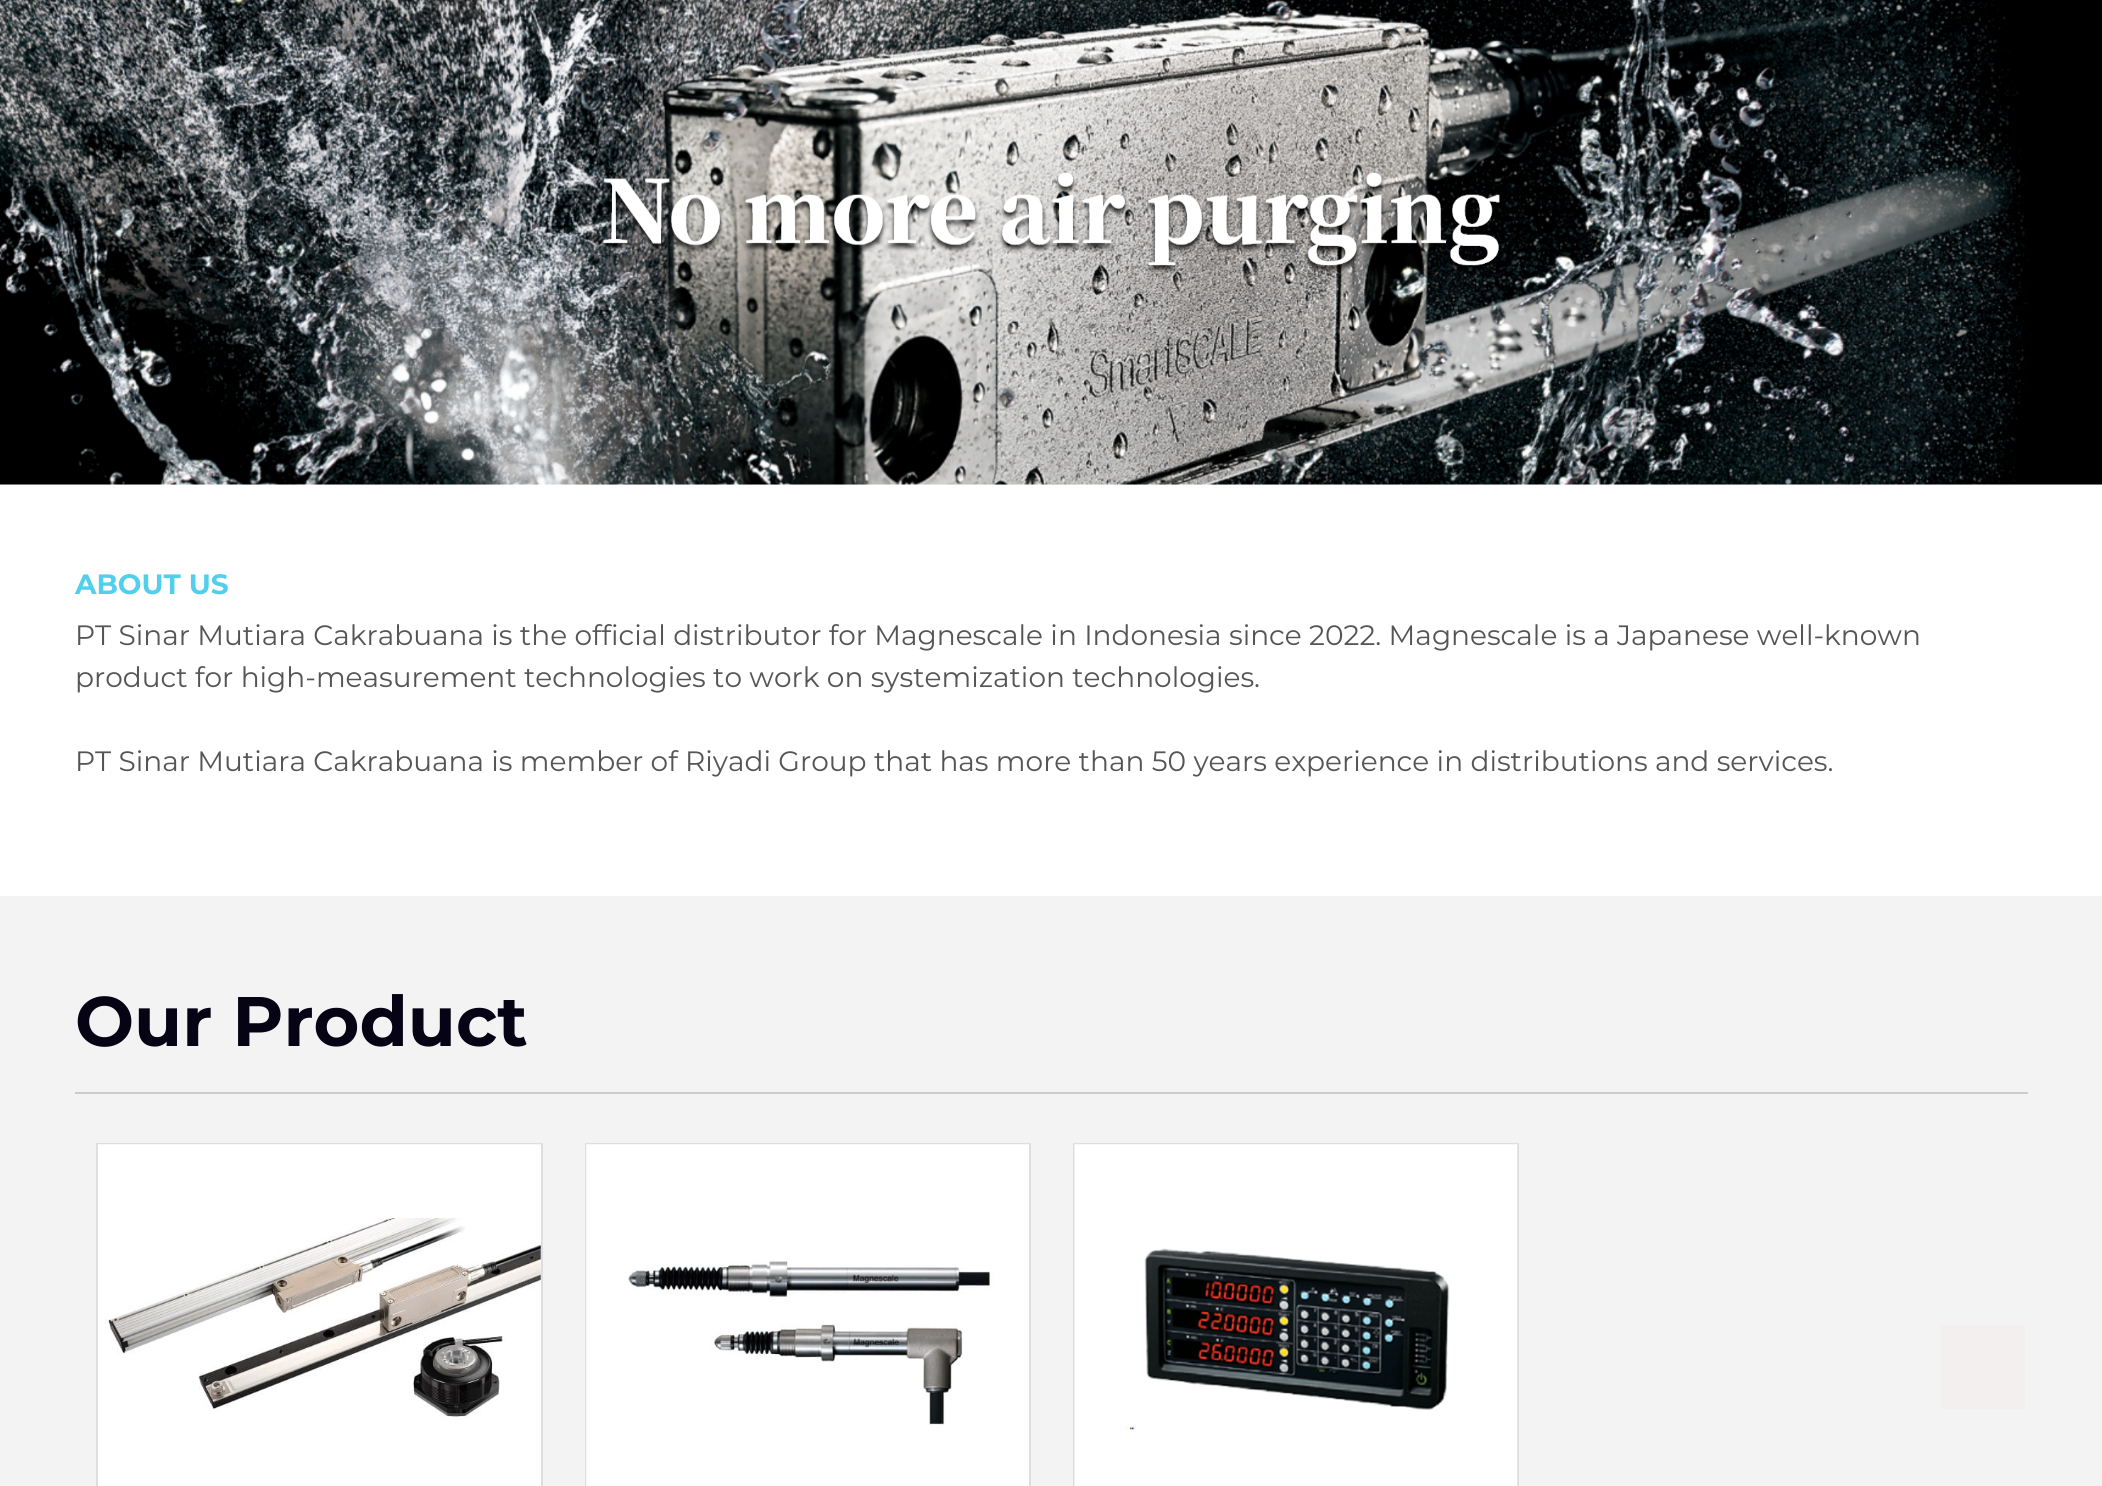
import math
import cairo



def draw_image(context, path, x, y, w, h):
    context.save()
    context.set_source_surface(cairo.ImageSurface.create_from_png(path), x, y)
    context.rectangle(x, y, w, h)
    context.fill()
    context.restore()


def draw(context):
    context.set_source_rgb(1, 1, 1)
    context.paint()
    draw_image(context, "images/1.png", 0, 0, 2102, 485)
    context.set_source_rgb(243 / 255, 243 / 255, 243 / 255)
    context.rectangle(0, 896, 2102, 590)
    context.fill()
    context.set_source_rgb(204 / 255, 204 / 255, 204 / 255)
    context.rectangle(75, 1092, 1953, 2)
    context.fill()
    context.set_source_rgb(1, 1, 1)
    context.rectangle(97, 1144, 445, 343)
    context.fill_preserve()
    context.set_source_rgb(222 / 255, 222 / 255, 222 / 255)
    context.stroke()
    draw_image(context, "images/2.png", 98, 1144, 443, 275)
    context.rectangle(586, 1144, 444, 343)
    context.stroke()
    draw_image(context, "images/3.png", 586, 1144, 443, 342)
    context.rectangle(1074, 1144, 444, 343)
    context.stroke()
    draw_image(context, "images/4.png", 1074, 1144, 444, 342)
    context.set_source_rgb(243 / 255, 239 / 255, 239 / 255)
    context.rectangle(1941, 1325, 84, 84)
    context.fill()
    context.select_font_face("Montserrat", cairo.FontSlant.NORMAL, cairo.FontWeight.BOLD)
    context.set_font_size(28)
    context.set_source_rgb(81 / 255, 207 / 255, 237 / 255)
    context.move_to(75, 594)
    context.show_text("ABOUT US")
    context.select_font_face("Montserrat")
    context.set_source_rgb(85 / 255, 85 / 255, 85 / 255)
    context.move_to(75, 645)
    context.show_text("PT Sinar Mutiara Cakrabuana is the official distributor for Magnescale in Indonesia since 2022. Magnescale is a Japanese well-known")
    context.move_to(75, 687)
    context.show_text("product for high-measurement technologies to work on systemization technologies.")
    context.move_to(75, 771)
    context.show_text("PT Sinar Mutiara Cakrabuana is member of Riyadi Group that has more than 50 years experience in distributions and services.")
    context.select_font_face("Montserrat", cairo.FontSlant.NORMAL, cairo.FontWeight.BOLD)
    context.set_font_size(70)
    context.set_source_rgb(6 / 255, 3 / 255, 21 / 255)
    context.move_to(75, 1046)
    context.show_text("Our Product")


surface = cairo.ImageSurface(cairo.Format.RGB24, 2102, 1486)
context = cairo.Context(surface)
options = cairo.FontOptions()
options.set_hint_metrics(cairo.HintMetrics.OFF)
options.set_hint_style(cairo.HintStyle.NONE)
context.set_font_options(options)
context.set_miter_limit(4)
draw(context)
surface.write_to_png("out.png")
